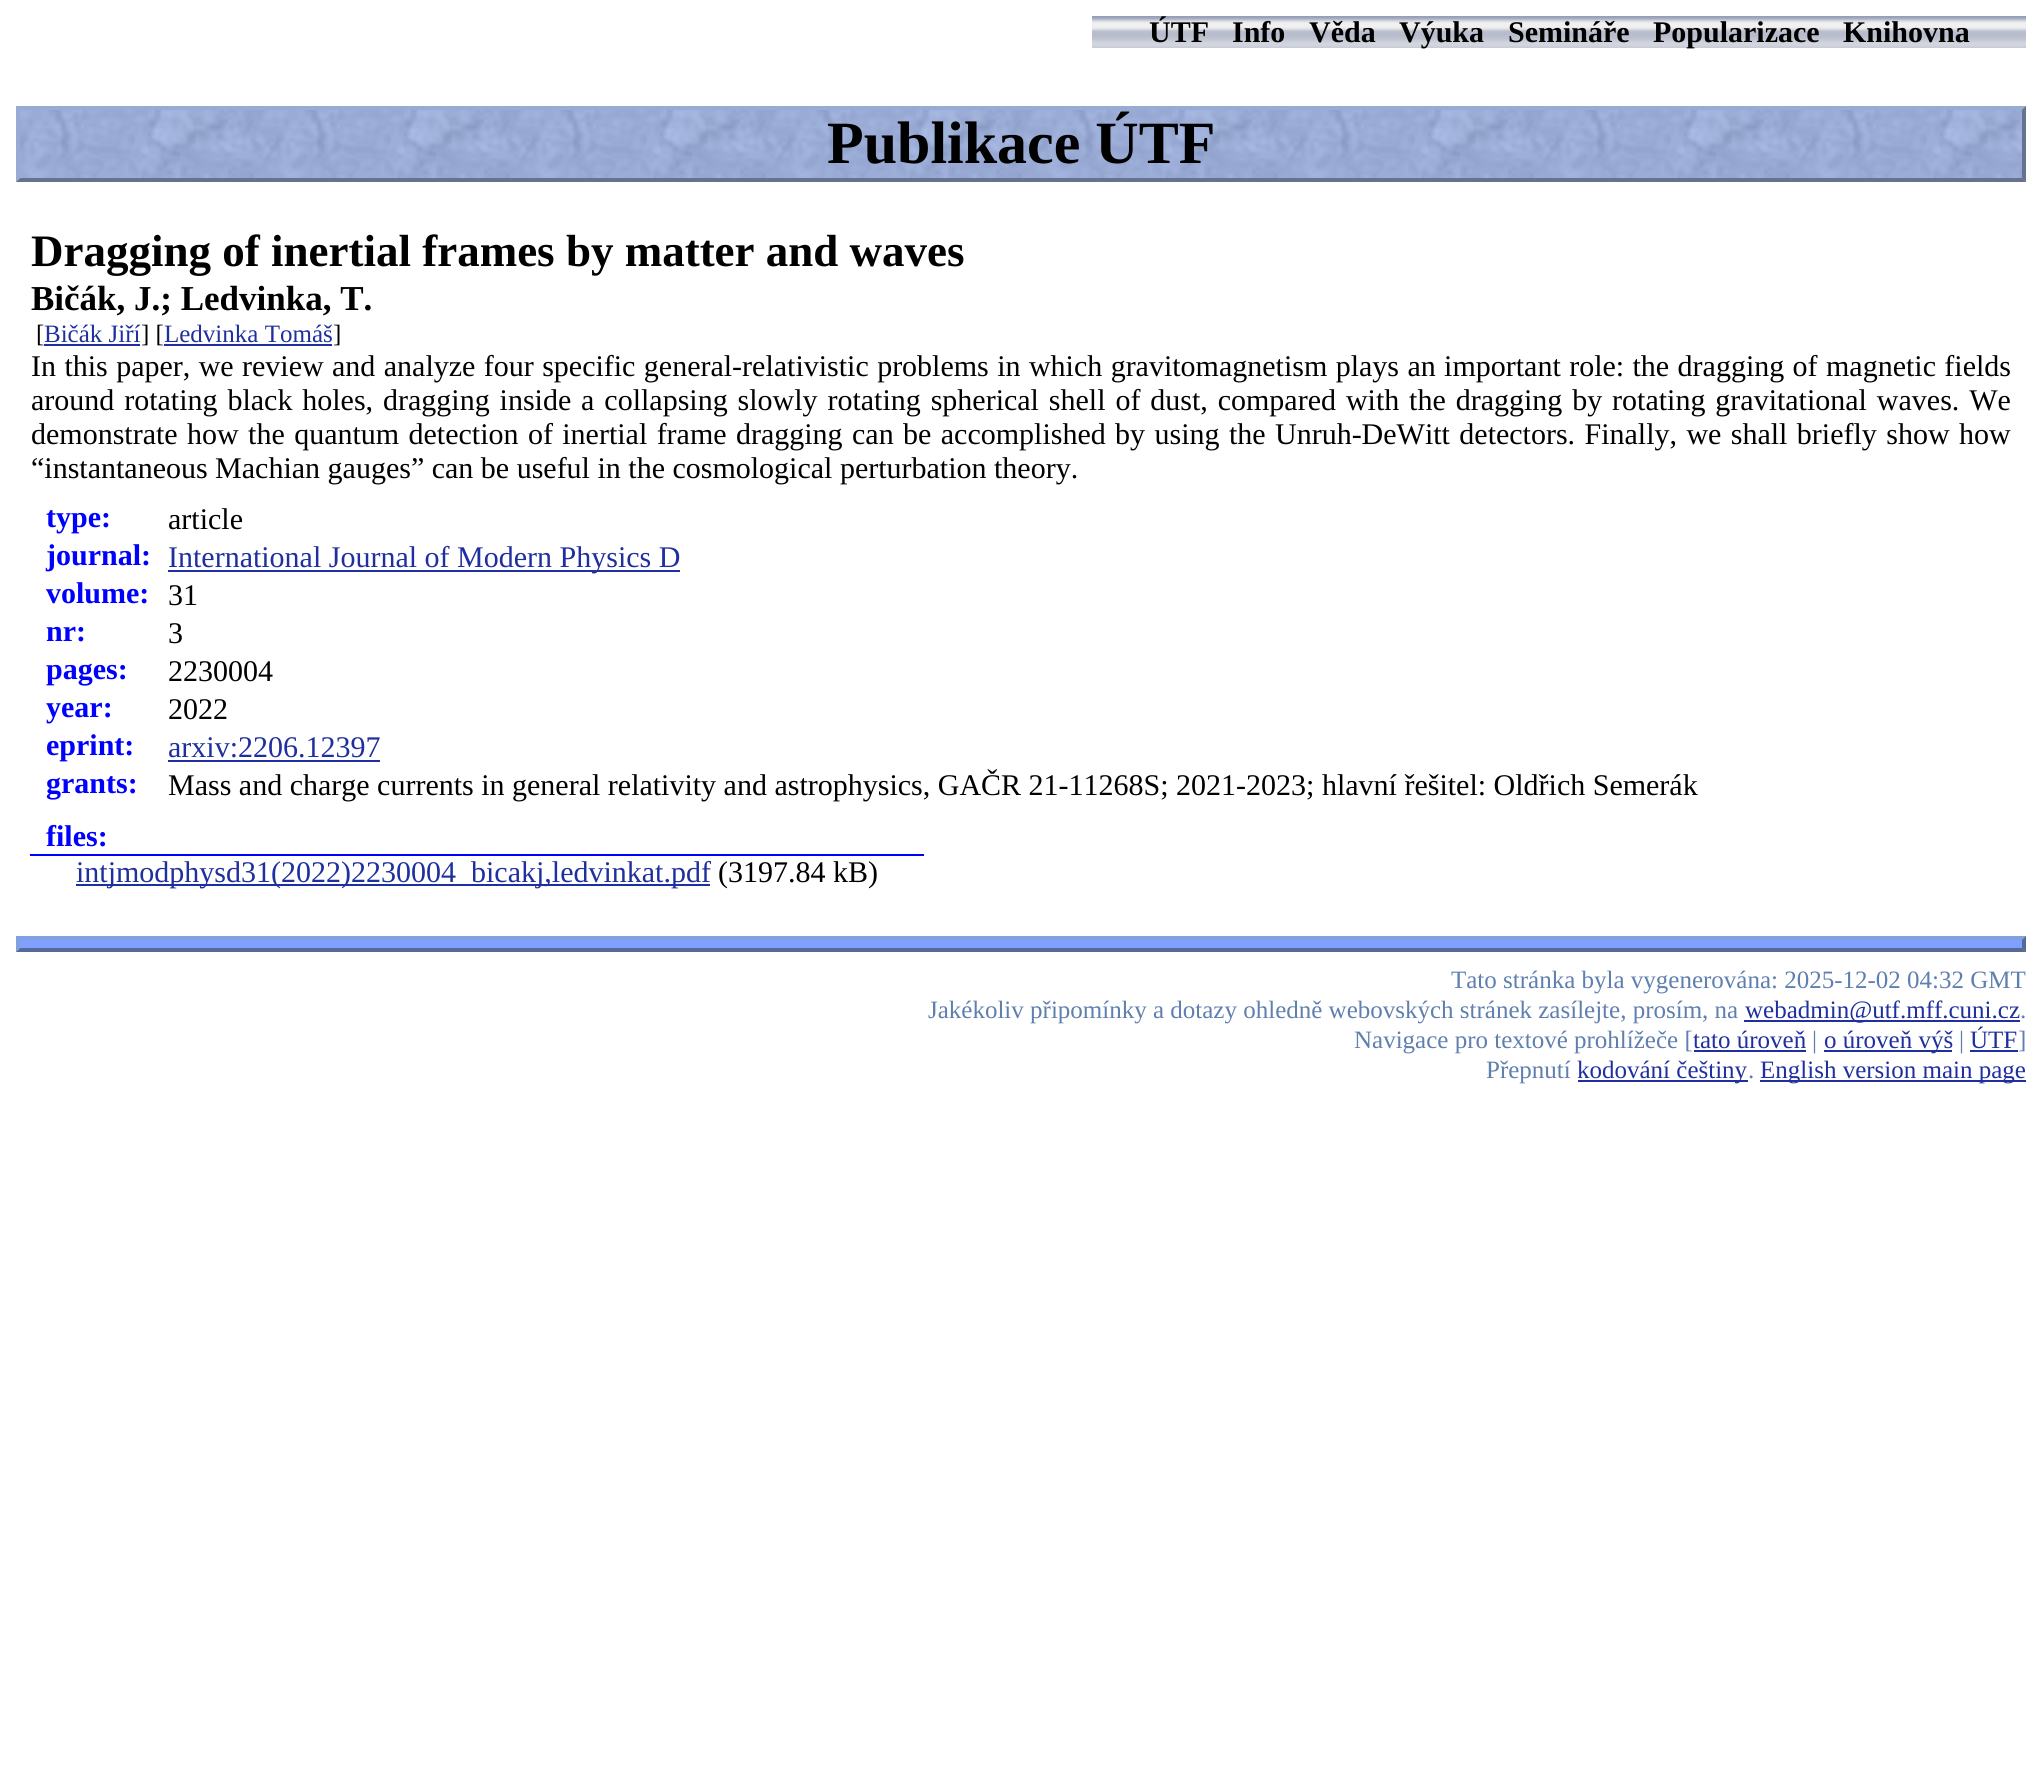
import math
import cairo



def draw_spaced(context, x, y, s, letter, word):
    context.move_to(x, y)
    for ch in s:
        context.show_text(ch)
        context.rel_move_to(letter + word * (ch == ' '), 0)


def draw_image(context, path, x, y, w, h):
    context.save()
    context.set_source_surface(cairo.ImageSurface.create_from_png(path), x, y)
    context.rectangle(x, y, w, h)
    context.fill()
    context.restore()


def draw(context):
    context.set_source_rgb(1, 1, 1)
    context.paint()
    draw_image(context, "images/1.png", 1092, 16, 934, 32)
    draw_image(context, "images/2.png", 16, 106, 2010, 76)
    context.set_source_rgb(152 / 255, 172 / 255, 211 / 255)
    context.new_path()
    context.move_to(16, 106)
    context.line_to(2026, 106)
    context.line_to(2022, 110)
    context.line_to(20, 110)
    context.close_path()
    context.fill()
    context.set_source_rgb(101 / 255, 115 / 255, 141 / 255)
    context.new_path()
    context.move_to(2026, 106)
    context.line_to(2026, 182)
    context.line_to(2022, 178)
    context.line_to(2022, 110)
    context.close_path()
    context.fill()
    context.new_path()
    context.move_to(2026, 182)
    context.line_to(16, 182)
    context.line_to(20, 178)
    context.line_to(2022, 178)
    context.close_path()
    context.fill()
    context.set_source_rgb(152 / 255, 172 / 255, 211 / 255)
    context.new_path()
    context.move_to(16, 182)
    context.line_to(16, 106)
    context.line_to(20, 110)
    context.line_to(20, 178)
    context.close_path()
    context.fill()
    context.set_source_rgb(31 / 255, 47 / 255, 159 / 255)
    context.rectangle(44, 344, 96, 2)
    context.fill()
    context.rectangle(164, 344, 168, 2)
    context.fill()
    context.rectangle(168, 570, 512, 2)
    context.fill()
    context.rectangle(168, 760, 212, 2)
    context.fill()
    context.set_source_rgb(0, 0, 1)
    context.rectangle(30, 854, 894, 2)
    context.fill()
    context.set_source_rgb(31 / 255, 47 / 255, 159 / 255)
    context.rectangle(76, 884, 634, 2)
    context.fill()
    context.set_source_rgb(128 / 255, 160 / 255, 1)
    context.rectangle(16, 936, 2010, 16)
    context.fill()
    context.set_source_rgb(128 / 255, 160 / 255, 223 / 255)
    context.new_path()
    context.move_to(16, 936)
    context.line_to(2026, 936)
    context.line_to(2022, 940)
    context.line_to(20, 940)
    context.close_path()
    context.fill()
    context.set_source_rgb(85 / 255, 107 / 255, 149 / 255)
    context.new_path()
    context.move_to(2026, 936)
    context.line_to(2026, 952)
    context.line_to(2022, 948)
    context.line_to(2022, 940)
    context.close_path()
    context.fill()
    context.new_path()
    context.move_to(2026, 952)
    context.line_to(16, 952)
    context.line_to(20, 948)
    context.line_to(2022, 948)
    context.close_path()
    context.fill()
    context.set_source_rgb(128 / 255, 160 / 255, 223 / 255)
    context.new_path()
    context.move_to(16, 952)
    context.line_to(16, 936)
    context.line_to(20, 940)
    context.line_to(20, 948)
    context.close_path()
    context.fill()
    context.set_source_rgb(31 / 255, 47 / 255, 159 / 255)
    context.rectangle(1744, 1020, 276, 2)
    context.fill()
    context.rectangle(1694, 1050, 112, 2)
    context.fill()
    context.rectangle(1824, 1050, 128, 2)
    context.fill()
    context.rectangle(1970, 1050, 48, 2)
    context.fill()
    context.rectangle(1578, 1080, 170, 2)
    context.fill()
    context.rectangle(1760, 1080, 266, 2)
    context.fill()
    context.select_font_face("Liberation Serif", cairo.FontSlant.NORMAL, cairo.FontWeight.BOLD)
    context.set_font_size(30)
    context.set_source_rgb(0, 0, 0)
    context.move_to(1149, 42)
    context.show_text("ÚTF")
    context.move_to(1232, 42)
    context.show_text("Info")
    context.move_to(1309, 42)
    context.show_text("Věda")
    context.move_to(1399, 42)
    context.show_text("Výuka")
    context.move_to(1508, 42)
    context.show_text("Semináře")
    context.move_to(1653, 42)
    context.show_text("Popularizace")
    context.move_to(1843, 42)
    context.show_text("Knihovna")
    context.set_font_size(60)
    context.move_to(827, 163)
    context.show_text("Publikace ÚTF")
    context.set_font_size(45)
    context.move_to(31, 266)
    context.show_text("Dragging of inertial frames by matter and waves")
    context.set_font_size(35)
    context.move_to(31, 310)
    context.show_text("Bičák, J.; Ledvinka, T.")
    context.select_font_face("Liberation Serif")
    context.set_font_size(25)
    context.move_to(36, 342)
    context.show_text("[")
    context.set_source_rgb(31 / 255, 47 / 255, 159 / 255)
    context.move_to(44, 342)
    context.show_text("Bičák Jiří")
    context.set_source_rgb(0, 0, 0)
    context.move_to(141, 342)
    context.show_text("] [")
    context.set_source_rgb(31 / 255, 47 / 255, 159 / 255)
    context.move_to(164, 342)
    context.show_text("Ledvinka Tomáš")
    context.set_source_rgb(0, 0, 0)
    context.move_to(333, 342)
    context.show_text("]")
    context.set_font_size(30)
    draw_spaced(context, 31, 376, "In this paper, we review and analyze four specific general-relativistic problems in which gravitomagnetism plays an important role: the dragging of magnetic fields", 0, 0.9)
    draw_spaced(context, 31, 410, "around rotating black holes, dragging inside a collapsing slowly rotating spherical shell of dust, compared with the dragging by rotating gravitational waves. We", 0, 2.4)
    draw_spaced(context, 31, 444, "demonstrate how the quantum detection of inertial frame dragging can be accomplished by using the Unruh-DeWitt detectors. Finally, we shall briefly show how", 0, 1.9)
    context.move_to(31, 478)
    context.show_text("“instantaneous Machian gauges” can be useful in the cosmological perturbation theory.")
    context.select_font_face("Liberation Serif", cairo.FontSlant.NORMAL, cairo.FontWeight.BOLD)
    context.set_source_rgb(0, 0, 1)
    context.move_to(46, 527)
    context.show_text("type:")
    context.select_font_face("Liberation Serif")
    context.set_source_rgb(0, 0, 0)
    context.move_to(168, 529)
    context.show_text("article")
    context.select_font_face("Liberation Serif", cairo.FontSlant.NORMAL, cairo.FontWeight.BOLD)
    context.set_source_rgb(0, 0, 1)
    context.move_to(46, 565)
    context.show_text("journal:")
    context.select_font_face("Liberation Serif")
    context.set_source_rgb(31 / 255, 47 / 255, 159 / 255)
    context.move_to(168, 567)
    context.show_text("International Journal of Modern Physics D")
    context.select_font_face("Liberation Serif", cairo.FontSlant.NORMAL, cairo.FontWeight.BOLD)
    context.set_source_rgb(0, 0, 1)
    context.move_to(46, 603)
    context.show_text("volume:")
    context.select_font_face("Liberation Serif")
    context.set_source_rgb(0, 0, 0)
    context.move_to(168, 605)
    context.show_text("31")
    context.select_font_face("Liberation Serif", cairo.FontSlant.NORMAL, cairo.FontWeight.BOLD)
    context.set_source_rgb(0, 0, 1)
    context.move_to(46, 641)
    context.show_text("nr:")
    context.select_font_face("Liberation Serif")
    context.set_source_rgb(0, 0, 0)
    context.move_to(168, 643)
    context.show_text("3")
    context.select_font_face("Liberation Serif", cairo.FontSlant.NORMAL, cairo.FontWeight.BOLD)
    context.set_source_rgb(0, 0, 1)
    context.move_to(46, 679)
    context.show_text("pages:")
    context.select_font_face("Liberation Serif")
    context.set_source_rgb(0, 0, 0)
    context.move_to(168, 681)
    context.show_text("2230004")
    context.select_font_face("Liberation Serif", cairo.FontSlant.NORMAL, cairo.FontWeight.BOLD)
    context.set_source_rgb(0, 0, 1)
    context.move_to(46, 717)
    context.show_text("year:")
    context.select_font_face("Liberation Serif")
    context.set_source_rgb(0, 0, 0)
    context.move_to(168, 719)
    context.show_text("2022")
    context.select_font_face("Liberation Serif", cairo.FontSlant.NORMAL, cairo.FontWeight.BOLD)
    context.set_source_rgb(0, 0, 1)
    context.move_to(46, 755)
    context.show_text("eprint:")
    context.select_font_face("Liberation Serif")
    context.set_source_rgb(31 / 255, 47 / 255, 159 / 255)
    context.move_to(168, 757)
    context.show_text("arxiv:2206.12397")
    context.select_font_face("Liberation Serif", cairo.FontSlant.NORMAL, cairo.FontWeight.BOLD)
    context.set_source_rgb(0, 0, 1)
    context.move_to(46, 793)
    context.show_text("grants:")
    context.select_font_face("Liberation Serif")
    context.set_source_rgb(0, 0, 0)
    context.move_to(168, 795)
    context.show_text("Mass and charge currents in general relativity and astrophysics, GAČR 21-11268S; 2021-2023; hlavní řešitel: Oldřich Semerák")
    context.select_font_face("Liberation Serif", cairo.FontSlant.NORMAL, cairo.FontWeight.BOLD)
    context.set_source_rgb(0, 0, 1)
    context.move_to(46, 846)
    context.show_text("files:")
    context.select_font_face("Liberation Serif")
    context.set_source_rgb(31 / 255, 47 / 255, 159 / 255)
    context.move_to(76, 882)
    context.show_text("intjmodphysd31(2022)2230004_bicakj,ledvinkat.pdf")
    context.set_source_rgb(0, 0, 0)
    context.move_to(718, 882)
    context.show_text("(3197.84 kB)")
    context.set_font_size(25)
    context.set_source_rgb(95 / 255, 127 / 255, 175 / 255)
    context.move_to(1451, 988)
    context.show_text("Tato stránka byla vygenerována: 2025-12-02 04:32 GMT")
    context.move_to(928, 1018)
    context.show_text("Jakékoliv připomínky a dotazy ohledně webovských stránek zasílejte, prosím, na")
    context.set_source_rgb(31 / 255, 47 / 255, 159 / 255)
    context.move_to(1745, 1018)
    context.show_text("webadmin@utf.mff.cuni.cz")
    context.set_source_rgb(95 / 255, 127 / 255, 175 / 255)
    context.move_to(2020, 1018)
    context.show_text(".")
    context.move_to(1354, 1048)
    context.show_text("Navigace pro textové prohlížeče [")
    context.set_source_rgb(31 / 255, 47 / 255, 159 / 255)
    context.move_to(1693, 1048)
    context.show_text("tato úroveň")
    context.set_source_rgb(95 / 255, 127 / 255, 175 / 255)
    context.move_to(1812, 1048)
    context.show_text("|")
    context.set_source_rgb(31 / 255, 47 / 255, 159 / 255)
    context.move_to(1824, 1048)
    context.show_text("o úroveň výš")
    context.set_source_rgb(95 / 255, 127 / 255, 175 / 255)
    context.move_to(1959, 1048)
    context.show_text("|")
    context.set_source_rgb(31 / 255, 47 / 255, 159 / 255)
    context.move_to(1970, 1048)
    context.show_text("ÚTF")
    context.set_source_rgb(95 / 255, 127 / 255, 175 / 255)
    context.move_to(2018, 1048)
    context.show_text("]")
    context.move_to(1486, 1078)
    context.show_text("Přepnutí")
    context.set_source_rgb(31 / 255, 47 / 255, 159 / 255)
    context.move_to(1577, 1078)
    context.show_text("kodování češtiny")
    context.set_source_rgb(95 / 255, 127 / 255, 175 / 255)
    context.move_to(1748, 1078)
    context.show_text(".")
    context.set_source_rgb(31 / 255, 47 / 255, 159 / 255)
    context.move_to(1760, 1078)
    context.show_text("English version main page")


surface = cairo.ImageSurface(cairo.Format.RGB24, 2042, 1770)
context = cairo.Context(surface)
options = cairo.FontOptions()
options.set_hint_metrics(cairo.HintMetrics.OFF)
options.set_hint_style(cairo.HintStyle.NONE)
context.set_font_options(options)
context.set_miter_limit(4)
draw(context)
surface.write_to_png("out.png")
